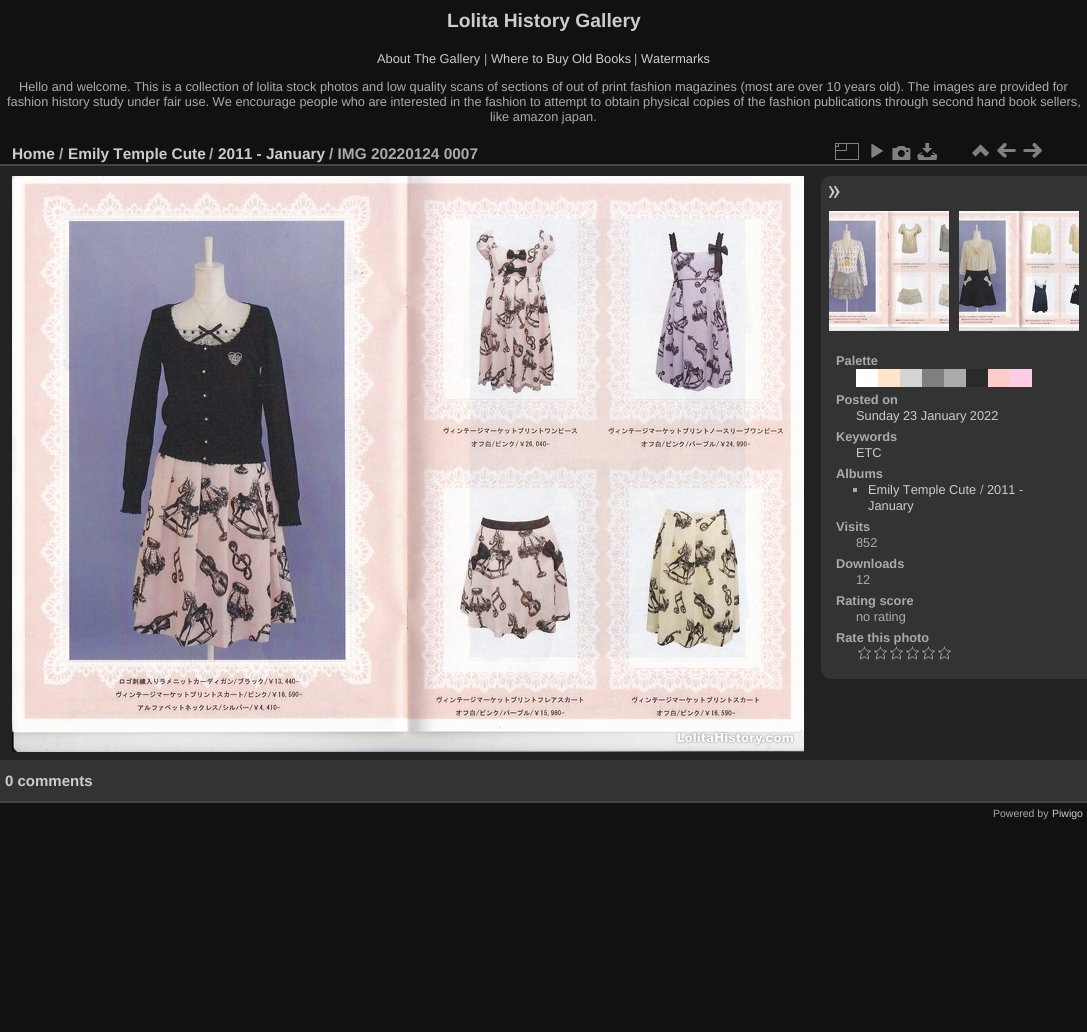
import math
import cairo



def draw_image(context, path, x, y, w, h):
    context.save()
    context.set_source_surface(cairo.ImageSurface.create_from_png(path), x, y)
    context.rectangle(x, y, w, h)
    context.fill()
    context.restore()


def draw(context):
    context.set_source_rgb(17 / 255, 17 / 255, 17 / 255)
    context.paint()
    context.set_source_rgb(34 / 255, 34 / 255, 34 / 255)
    context.rectangle(0, 166, 1087, 594)
    context.fill()
    context.set_source_rgb(68 / 255, 68 / 255, 68 / 255)
    context.rectangle(0, 801, 1087, 2)
    context.fill()
    context.rectangle(0, 164, 1087, 2)
    context.fill()
    draw_image(context, "images/1.png", 835, 143, 24, 17)
    draw_image(context, "images/2.png", 871, 144, 12, 14)
    draw_image(context, "images/3.png", 892, 146, 19, 14)
    draw_image(context, "images/4.png", 917, 143, 21, 17)
    draw_image(context, "images/5.png", 972, 144, 17, 13)
    draw_image(context, "images/6.png", 997, 143, 19, 15)
    draw_image(context, "images/7.png", 1023, 143, 19, 15)
    draw_image(context, "images/8.png", 12, 176, 792, 576)
    context.set_source_rgb(51 / 255, 51 / 255, 51 / 255)
    context.new_path()
    context.move_to(831, 176)
    context.line_to(1087, 176)
    context.line_to(1087, 679)
    context.line_to(831, 679)
    context.curve_to(825.5, 679, 821, 674.5, 821, 669)
    context.line_to(821, 186)
    context.curve_to(821, 180.5, 825.5, 176, 831, 176)
    context.close_path()
    context.fill()
    draw_image(context, "images/9.png", 828, 186, 12, 12)
    draw_image(context, "images/10.png", 829, 211, 120, 120)
    draw_image(context, "images/11.png", 959, 211, 120, 120)
    context.set_source_rgb(1, 1, 1)
    context.rectangle(856, 369, 22, 18)
    context.fill()
    context.set_source_rgb(1, 229 / 255, 204 / 255)
    context.rectangle(878, 369, 22, 18)
    context.fill()
    context.set_source_rgb(212 / 255, 212 / 255, 212 / 255)
    context.rectangle(900, 369, 22, 18)
    context.fill()
    context.set_source_rgb(127 / 255, 127 / 255, 127 / 255)
    context.rectangle(922, 369, 22, 18)
    context.fill()
    context.set_source_rgb(170 / 255, 170 / 255, 170 / 255)
    context.rectangle(944, 369, 22, 18)
    context.fill()
    context.set_source_rgb(42 / 255, 42 / 255, 42 / 255)
    context.rectangle(966, 369, 22, 18)
    context.fill()
    context.set_source_rgb(1, 204 / 255, 204 / 255)
    context.rectangle(988, 369, 22, 18)
    context.fill()
    context.set_source_rgb(1, 204 / 255, 229 / 255)
    context.rectangle(1010, 369, 22, 18)
    context.fill()
    context.set_source_rgb(170 / 255, 170 / 255, 170 / 255)
    context.rectangle(853, 488, 4, 4)
    context.fill()
    draw_image(context, "images/12.png", 858, 646, 13, 14)
    draw_image(context, "images/12.png", 874, 646, 13, 14)
    draw_image(context, "images/12.png", 890, 646, 13, 14)
    draw_image(context, "images/12.png", 906, 646, 13, 14)
    draw_image(context, "images/12.png", 922, 646, 13, 14)
    draw_image(context, "images/12.png", 938, 646, 13, 14)
    context.set_source_rgb(51 / 255, 51 / 255, 51 / 255)
    context.rectangle(0, 760, 1087, 41)
    context.fill()
    context.select_font_face("Liberation Sans", cairo.FontSlant.NORMAL, cairo.FontWeight.BOLD)
    context.set_font_size(19.25)
    context.set_source_rgb(204 / 255, 204 / 255, 204 / 255)
    context.move_to(447, 27)
    context.show_text("Lolita History Gallery")
    context.select_font_face("Liberation Sans")
    context.set_font_size(12.8)
    context.move_to(377, 63)
    context.show_text("About The Gallery")
    context.set_source_rgb(170 / 255, 170 / 255, 170 / 255)
    context.move_to(484, 63)
    context.show_text("|")
    context.set_source_rgb(204 / 255, 204 / 255, 204 / 255)
    context.move_to(491, 63)
    context.show_text("Where to Buy Old Books")
    context.set_source_rgb(170 / 255, 170 / 255, 170 / 255)
    context.move_to(634, 63)
    context.show_text("|")
    context.set_source_rgb(204 / 255, 204 / 255, 204 / 255)
    context.move_to(641, 63)
    context.show_text("Watermarks")
    context.set_source_rgb(170 / 255, 170 / 255, 170 / 255)
    context.move_to(19, 91)
    context.show_text("Hello and welcome. This is a collection of lolita stock photos and low quality scans of sections of out of print fashion magazines (most are over 10 years old). The images are provided for")
    context.move_to(7, 106)
    context.show_text("fashion history study under fair use. We encourage people who are interested in the fashion to attempt to obtain physical copies of the fashion publications through second hand book sellers,")
    context.move_to(490, 121)
    context.show_text("like amazon japan.")
    context.select_font_face("Liberation Sans", cairo.FontSlant.NORMAL, cairo.FontWeight.BOLD)
    context.set_font_size(15.4)
    context.set_source_rgb(204 / 255, 204 / 255, 204 / 255)
    context.move_to(12, 159)
    context.show_text("Home")
    context.set_source_rgb(170 / 255, 170 / 255, 170 / 255)
    context.move_to(59, 159)
    context.show_text("/")
    context.set_source_rgb(204 / 255, 204 / 255, 204 / 255)
    context.move_to(68, 159)
    context.show_text("Emily Temple Cute")
    context.set_source_rgb(170 / 255, 170 / 255, 170 / 255)
    context.move_to(209, 159)
    context.show_text("/")
    context.set_source_rgb(204 / 255, 204 / 255, 204 / 255)
    context.move_to(218, 159)
    context.show_text("2011 - January")
    context.set_source_rgb(170 / 255, 170 / 255, 170 / 255)
    context.move_to(329, 159)
    context.show_text("/ IMG 20220124 0007")
    context.set_font_size(12.8)
    context.move_to(836, 365)
    context.show_text("Palette")
    context.move_to(836, 404)
    context.show_text("Posted on")
    context.select_font_face("Liberation Sans")
    context.set_source_rgb(204 / 255, 204 / 255, 204 / 255)
    context.move_to(856, 420)
    context.show_text("Sunday 23 January 2022")
    context.select_font_face("Liberation Sans", cairo.FontSlant.NORMAL, cairo.FontWeight.BOLD)
    context.set_source_rgb(170 / 255, 170 / 255, 170 / 255)
    context.move_to(836, 441)
    context.show_text("Keywords")
    context.select_font_face("Liberation Sans")
    context.set_source_rgb(204 / 255, 204 / 255, 204 / 255)
    context.move_to(856, 457)
    context.show_text("ETC")
    context.select_font_face("Liberation Sans", cairo.FontSlant.NORMAL, cairo.FontWeight.BOLD)
    context.set_source_rgb(170 / 255, 170 / 255, 170 / 255)
    context.move_to(836, 478)
    context.show_text("Albums")
    context.select_font_face("Liberation Sans")
    context.set_source_rgb(204 / 255, 204 / 255, 204 / 255)
    context.move_to(868, 494)
    context.show_text("Emily Temple Cute")
    context.set_source_rgb(170 / 255, 170 / 255, 170 / 255)
    context.move_to(980, 494)
    context.show_text("/")
    context.set_source_rgb(204 / 255, 204 / 255, 204 / 255)
    context.move_to(987, 494)
    context.show_text("2011 -")
    context.move_to(868, 510)
    context.show_text("January")
    context.select_font_face("Liberation Sans", cairo.FontSlant.NORMAL, cairo.FontWeight.BOLD)
    context.set_source_rgb(170 / 255, 170 / 255, 170 / 255)
    context.move_to(836, 531)
    context.show_text("Visits")
    context.select_font_face("Liberation Sans")
    context.move_to(856, 547)
    context.show_text("852")
    context.select_font_face("Liberation Sans", cairo.FontSlant.NORMAL, cairo.FontWeight.BOLD)
    context.move_to(836, 568)
    context.show_text("Downloads")
    context.select_font_face("Liberation Sans")
    context.move_to(856, 584)
    context.show_text("12")
    context.select_font_face("Liberation Sans", cairo.FontSlant.NORMAL, cairo.FontWeight.BOLD)
    context.move_to(836, 605)
    context.show_text("Rating score")
    context.select_font_face("Liberation Sans")
    context.move_to(856, 621)
    context.show_text("no rating")
    context.select_font_face("Liberation Sans", cairo.FontSlant.NORMAL, cairo.FontWeight.BOLD)
    context.move_to(836, 642)
    context.show_text("Rate this photo")
    context.set_font_size(15)
    context.set_source_rgb(204 / 255, 204 / 255, 204 / 255)
    context.move_to(5, 786)
    context.show_text("0 comments")
    context.select_font_face("Liberation Sans")
    context.set_font_size(10.5)
    context.set_source_rgb(170 / 255, 170 / 255, 170 / 255)
    context.move_to(993, 817)
    context.show_text("Powered by")
    context.set_source_rgb(204 / 255, 204 / 255, 204 / 255)
    context.move_to(1052, 817)
    context.show_text("Piwigo")


surface = cairo.ImageSurface(cairo.Format.RGB24, 1087, 1032)
context = cairo.Context(surface)
options = cairo.FontOptions()
options.set_hint_metrics(cairo.HintMetrics.OFF)
options.set_hint_style(cairo.HintStyle.NONE)
context.set_font_options(options)
context.set_miter_limit(4)
draw(context)
surface.write_to_png("out.png")
